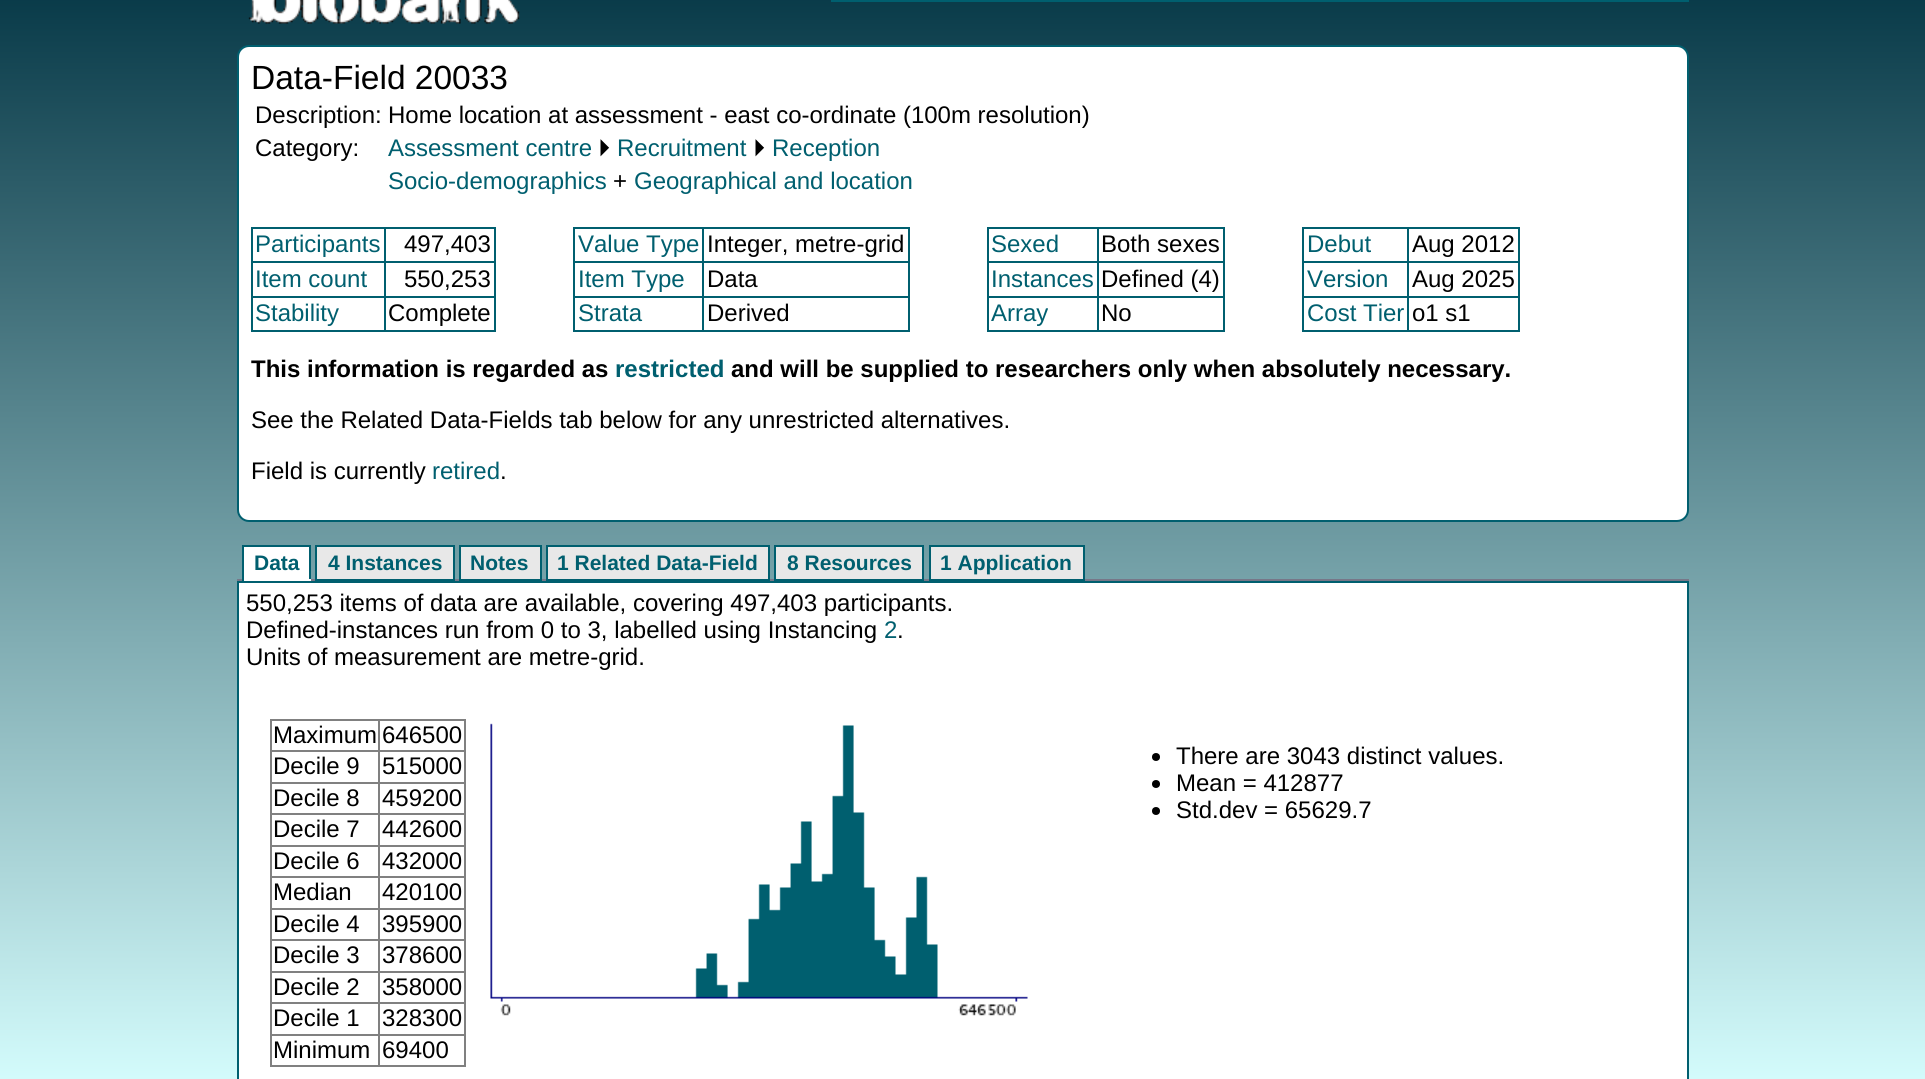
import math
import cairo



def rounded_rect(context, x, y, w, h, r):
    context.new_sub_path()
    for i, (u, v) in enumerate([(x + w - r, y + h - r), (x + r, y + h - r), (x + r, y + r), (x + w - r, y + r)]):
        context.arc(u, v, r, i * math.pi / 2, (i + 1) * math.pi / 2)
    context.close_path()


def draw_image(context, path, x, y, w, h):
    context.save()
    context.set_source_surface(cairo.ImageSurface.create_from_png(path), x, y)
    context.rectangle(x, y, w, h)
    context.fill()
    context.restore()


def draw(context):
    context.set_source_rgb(1, 1, 1)
    context.paint()
    gradient = cairo.LinearGradient(0, -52, 0, 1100)
    gradient.add_color_stop_rgba(0, 0, 50 / 255, 65 / 255, 1)
    gradient.add_color_stop_rgba(1, 215 / 255, 1, 1, 1)
    context.set_source(gradient)
    context.rectangle(0, 0, 1925, 1079)
    context.fill()
    draw_image(context, "images/1.png", 248, 0, 272, 24)
    context.set_source_rgb(0, 95 / 255, 111 / 255)
    context.rectangle(831, 0, 729, 2)
    context.fill()
    context.rectangle(1561, -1, 127, 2)
    context.stroke()
    context.set_source_rgb(1, 1, 1)
    rounded_rect(context, 238, 46, 1450, 475, 11)
    context.fill_preserve()
    context.set_source_rgb(0, 95 / 255, 111 / 255)
    context.stroke()
    context.rectangle(384, 227, 111, 2)
    context.fill()
    context.rectangle(384, 261, 111, 2)
    context.fill()
    context.rectangle(384, 296, 111, 2)
    context.fill()
    context.rectangle(494, 296, 2, 36)
    context.fill()
    context.rectangle(384, 330, 111, 2)
    context.fill()
    context.rectangle(384, 296, 2, 36)
    context.fill()
    context.rectangle(251, 296, 135, 2)
    context.fill()
    context.rectangle(384, 261, 2, 36)
    context.fill()
    context.rectangle(251, 261, 135, 2)
    context.fill()
    context.rectangle(384, 227, 2, 36)
    context.fill()
    context.rectangle(251, 227, 135, 2)
    context.fill()
    context.rectangle(251, 330, 135, 2)
    context.fill()
    context.rectangle(251, 296, 2, 36)
    context.fill()
    context.rectangle(251, 261, 2, 36)
    context.fill()
    context.rectangle(251, 227, 2, 36)
    context.fill()
    context.rectangle(494, 261, 2, 36)
    context.fill()
    context.rectangle(494, 227, 2, 36)
    context.fill()
    context.rectangle(702, 227, 207, 2)
    context.fill()
    context.rectangle(702, 261, 207, 2)
    context.fill()
    context.rectangle(702, 296, 207, 2)
    context.fill()
    context.rectangle(908, 296, 2, 36)
    context.fill()
    context.rectangle(702, 330, 207, 2)
    context.fill()
    context.rectangle(702, 296, 2, 36)
    context.fill()
    context.rectangle(573, 296, 131, 2)
    context.fill()
    context.rectangle(702, 261, 2, 36)
    context.fill()
    context.rectangle(573, 261, 131, 2)
    context.fill()
    context.rectangle(702, 227, 2, 36)
    context.fill()
    context.rectangle(573, 227, 131, 2)
    context.fill()
    context.rectangle(573, 330, 131, 2)
    context.fill()
    context.rectangle(573, 296, 2, 36)
    context.fill()
    context.rectangle(573, 261, 2, 36)
    context.fill()
    context.rectangle(573, 227, 2, 36)
    context.fill()
    context.rectangle(908, 261, 2, 36)
    context.fill()
    context.rectangle(908, 227, 2, 36)
    context.fill()
    context.rectangle(1097, 227, 127, 2)
    context.fill()
    context.rectangle(1097, 261, 127, 2)
    context.fill()
    context.rectangle(1097, 296, 127, 2)
    context.fill()
    context.rectangle(1223, 296, 2, 36)
    context.fill()
    context.rectangle(1097, 330, 127, 2)
    context.fill()
    context.rectangle(1097, 296, 2, 36)
    context.fill()
    context.rectangle(987, 296, 111, 2)
    context.fill()
    context.rectangle(1097, 261, 2, 36)
    context.fill()
    context.rectangle(987, 261, 111, 2)
    context.fill()
    context.rectangle(1097, 227, 2, 36)
    context.fill()
    context.rectangle(987, 227, 111, 2)
    context.fill()
    context.rectangle(987, 330, 111, 2)
    context.fill()
    context.rectangle(987, 296, 2, 36)
    context.fill()
    context.rectangle(987, 261, 2, 36)
    context.fill()
    context.rectangle(987, 227, 2, 36)
    context.fill()
    context.rectangle(1223, 261, 2, 36)
    context.fill()
    context.rectangle(1223, 227, 2, 36)
    context.fill()
    context.rectangle(1407, 227, 113, 2)
    context.fill()
    context.rectangle(1407, 261, 113, 2)
    context.fill()
    context.rectangle(1407, 296, 113, 2)
    context.fill()
    context.rectangle(1518, 296, 2, 36)
    context.fill()
    context.rectangle(1407, 330, 113, 2)
    context.fill()
    context.rectangle(1407, 296, 2, 36)
    context.fill()
    context.rectangle(1302, 296, 107, 2)
    context.fill()
    context.rectangle(1407, 261, 2, 36)
    context.fill()
    context.rectangle(1302, 261, 107, 2)
    context.fill()
    context.rectangle(1407, 227, 2, 36)
    context.fill()
    context.rectangle(1302, 227, 107, 2)
    context.fill()
    context.rectangle(1302, 330, 107, 2)
    context.fill()
    context.rectangle(1302, 296, 2, 36)
    context.fill()
    context.rectangle(1302, 261, 2, 36)
    context.fill()
    context.rectangle(1302, 227, 2, 36)
    context.fill()
    context.rectangle(1518, 261, 2, 36)
    context.fill()
    context.rectangle(1518, 227, 2, 36)
    context.fill()
    context.set_source_rgb(119 / 255, 119 / 255, 136 / 255)
    context.rectangle(237, 579, 1452, 2)
    context.fill()
    context.set_source_rgb(1, 1, 1)
    context.rectangle(244, 547, 65, 32)
    context.fill()
    context.set_source_rgb(0, 95 / 255, 111 / 255)
    context.rectangle(242, 545, 69, 2)
    context.fill()
    context.rectangle(309, 545, 2, 36)
    context.fill()
    context.set_source_rgb(1, 1, 1)
    context.rectangle(242, 579, 69, 2)
    context.fill()
    context.set_source_rgb(0, 95 / 255, 111 / 255)
    context.rectangle(242, 545, 2, 36)
    context.fill()
    context.set_source_rgb(232 / 255, 232 / 255, 232 / 255)
    context.rectangle(316, 546, 138, 34)
    context.fill_preserve()
    context.set_source_rgb(0, 95 / 255, 111 / 255)
    context.stroke()
    context.set_source_rgb(232 / 255, 232 / 255, 232 / 255)
    context.rectangle(460, 546, 81, 34)
    context.fill_preserve()
    context.set_source_rgb(0, 95 / 255, 111 / 255)
    context.stroke()
    context.set_source_rgb(232 / 255, 232 / 255, 232 / 255)
    context.rectangle(547, 546, 222, 34)
    context.fill_preserve()
    context.set_source_rgb(0, 95 / 255, 111 / 255)
    context.stroke()
    context.set_source_rgb(232 / 255, 232 / 255, 232 / 255)
    context.rectangle(775, 546, 148, 34)
    context.fill_preserve()
    context.set_source_rgb(0, 95 / 255, 111 / 255)
    context.stroke()
    context.set_source_rgb(232 / 255, 232 / 255, 232 / 255)
    context.rectangle(930, 546, 154, 34)
    context.fill_preserve()
    context.set_source_rgb(0, 95 / 255, 111 / 255)
    context.stroke()
    context.set_source_rgb(1, 1, 1)
    context.rectangle(238, 582, 1450, 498)
    context.fill_preserve()
    context.set_source_rgb(0, 95 / 255, 111 / 255)
    context.stroke()
    context.set_source_rgb(128 / 255, 128 / 255, 128 / 255)
    context.rectangle(378, 719, 87, 2)
    context.fill()
    context.rectangle(378, 750, 87, 2)
    context.fill()
    context.rectangle(378, 782, 87, 2)
    context.fill()
    context.rectangle(378, 813, 87, 2)
    context.fill()
    context.rectangle(378, 845, 87, 2)
    context.fill()
    context.rectangle(378, 876, 87, 2)
    context.fill()
    context.rectangle(378, 908, 87, 2)
    context.fill()
    context.rectangle(378, 939, 87, 2)
    context.fill()
    context.rectangle(378, 971, 87, 2)
    context.fill()
    context.rectangle(378, 1002, 87, 2)
    context.fill()
    context.rectangle(378, 1034, 87, 2)
    context.fill()
    context.rectangle(464, 1034, 2, 33)
    context.fill()
    context.rectangle(378, 1065, 87, 2)
    context.fill()
    context.rectangle(378, 1034, 2, 33)
    context.fill()
    context.rectangle(270, 1034, 110, 2)
    context.fill()
    context.rectangle(378, 1002, 2, 33)
    context.fill()
    context.rectangle(270, 1002, 110, 2)
    context.fill()
    context.rectangle(378, 971, 2, 33)
    context.fill()
    context.rectangle(270, 971, 110, 2)
    context.fill()
    context.rectangle(378, 939, 2, 33)
    context.fill()
    context.rectangle(270, 939, 110, 2)
    context.fill()
    context.rectangle(378, 908, 2, 33)
    context.fill()
    context.rectangle(270, 908, 110, 2)
    context.fill()
    context.rectangle(378, 876, 2, 33)
    context.fill()
    context.rectangle(270, 876, 110, 2)
    context.fill()
    context.rectangle(378, 845, 2, 33)
    context.fill()
    context.rectangle(270, 845, 110, 2)
    context.fill()
    context.rectangle(378, 813, 2, 33)
    context.fill()
    context.rectangle(270, 813, 110, 2)
    context.fill()
    context.rectangle(378, 782, 2, 33)
    context.fill()
    context.rectangle(270, 782, 110, 2)
    context.fill()
    context.rectangle(378, 750, 2, 33)
    context.fill()
    context.rectangle(270, 750, 110, 2)
    context.fill()
    context.rectangle(378, 719, 2, 33)
    context.fill()
    context.rectangle(270, 719, 110, 2)
    context.fill()
    context.rectangle(270, 1065, 110, 2)
    context.fill()
    context.rectangle(270, 1034, 2, 33)
    context.fill()
    context.rectangle(270, 1002, 2, 33)
    context.fill()
    context.rectangle(270, 971, 2, 33)
    context.fill()
    context.rectangle(270, 939, 2, 33)
    context.fill()
    context.rectangle(270, 908, 2, 33)
    context.fill()
    context.rectangle(270, 876, 2, 33)
    context.fill()
    context.rectangle(270, 845, 2, 33)
    context.fill()
    context.rectangle(270, 813, 2, 33)
    context.fill()
    context.rectangle(270, 782, 2, 33)
    context.fill()
    context.rectangle(270, 750, 2, 33)
    context.fill()
    context.rectangle(270, 719, 2, 33)
    context.fill()
    context.rectangle(464, 1002, 2, 33)
    context.fill()
    context.rectangle(464, 971, 2, 33)
    context.fill()
    context.rectangle(464, 939, 2, 33)
    context.fill()
    context.rectangle(464, 908, 2, 33)
    context.fill()
    context.rectangle(464, 876, 2, 33)
    context.fill()
    context.rectangle(464, 845, 2, 33)
    context.fill()
    context.rectangle(464, 813, 2, 33)
    context.fill()
    context.rectangle(464, 782, 2, 33)
    context.fill()
    context.rectangle(464, 750, 2, 33)
    context.fill()
    context.rectangle(464, 719, 2, 33)
    context.fill()
    draw_image(context, "images/2.png", 490, 723, 538, 293)
    context.set_source_rgb(0, 0, 0)
    context.arc(1156, 757, 4, 0, 2 * math.pi)
    context.fill()
    context.arc(1156, 784, 4, 0, 2 * math.pi)
    context.fill()
    context.arc(1156, 811, 4, 0, 2 * math.pi)
    context.fill()
    context.select_font_face("Liberation Sans")
    context.set_font_size(33.5)
    context.move_to(251, 89)
    context.show_text("Data-Field 20033")
    context.set_font_size(24)
    context.move_to(255, 123)
    context.show_text("Description:")
    context.move_to(388, 123)
    context.show_text("Home location at assessment - east co-ordinate (100m resolution)")
    context.move_to(255, 156)
    context.show_text("Category:")
    context.set_source_rgb(0, 95 / 255, 111 / 255)
    context.move_to(388, 156)
    context.show_text("Assessment centre")
    context.select_font_face("FreeSans")
    context.set_source_rgb(0, 0, 0)
    context.move_to(598, 156)
    context.show_text("⏵")
    context.select_font_face("Liberation Sans")
    context.set_source_rgb(0, 95 / 255, 111 / 255)
    context.move_to(617, 156)
    context.show_text("Recruitment")
    context.select_font_face("FreeSans")
    context.set_source_rgb(0, 0, 0)
    context.move_to(753, 156)
    context.show_text("⏵")
    context.select_font_face("Liberation Sans")
    context.set_source_rgb(0, 95 / 255, 111 / 255)
    context.move_to(772, 156)
    context.show_text("Reception")
    context.move_to(388, 189)
    context.show_text("Socio-demographics")
    context.set_source_rgb(0, 0, 0)
    context.move_to(613, 189)
    context.show_text("+")
    context.set_source_rgb(0, 95 / 255, 111 / 255)
    context.move_to(634, 189)
    context.show_text("Geographical and location")
    context.move_to(255, 252)
    context.show_text("Participants")
    context.set_source_rgb(0, 0, 0)
    context.move_to(404, 252)
    context.show_text("497,403")
    context.set_source_rgb(0, 95 / 255, 111 / 255)
    context.move_to(578, 252)
    context.show_text("Value Type")
    context.set_source_rgb(0, 0, 0)
    context.move_to(707, 252)
    context.show_text("Integer, metre-grid")
    context.set_source_rgb(0, 95 / 255, 111 / 255)
    context.move_to(991, 252)
    context.show_text("Sexed")
    context.set_source_rgb(0, 0, 0)
    context.move_to(1101, 252)
    context.show_text("Both sexes")
    context.set_source_rgb(0, 95 / 255, 111 / 255)
    context.move_to(1307, 252)
    context.show_text("Debut")
    context.set_source_rgb(0, 0, 0)
    context.move_to(1412, 252)
    context.show_text("Aug 2012")
    context.set_source_rgb(0, 95 / 255, 111 / 255)
    context.move_to(255, 287)
    context.show_text("Item count")
    context.set_source_rgb(0, 0, 0)
    context.move_to(404, 287)
    context.show_text("550,253")
    context.set_source_rgb(0, 95 / 255, 111 / 255)
    context.move_to(578, 287)
    context.show_text("Item Type")
    context.set_source_rgb(0, 0, 0)
    context.move_to(707, 287)
    context.show_text("Data")
    context.set_source_rgb(0, 95 / 255, 111 / 255)
    context.move_to(991, 287)
    context.show_text("Instances")
    context.set_source_rgb(0, 0, 0)
    context.move_to(1101, 287)
    context.show_text("Defined (4)")
    context.set_source_rgb(0, 95 / 255, 111 / 255)
    context.move_to(1307, 287)
    context.show_text("Version")
    context.set_source_rgb(0, 0, 0)
    context.move_to(1412, 287)
    context.show_text("Aug 2025")
    context.set_source_rgb(0, 95 / 255, 111 / 255)
    context.move_to(255, 321)
    context.show_text("Stability")
    context.set_source_rgb(0, 0, 0)
    context.move_to(388, 321)
    context.show_text("Complete")
    context.set_source_rgb(0, 95 / 255, 111 / 255)
    context.move_to(578, 321)
    context.show_text("Strata")
    context.set_source_rgb(0, 0, 0)
    context.move_to(707, 321)
    context.show_text("Derived")
    context.set_source_rgb(0, 95 / 255, 111 / 255)
    context.move_to(991, 321)
    context.show_text("Array")
    context.set_source_rgb(0, 0, 0)
    context.move_to(1101, 321)
    context.show_text("No")
    context.set_source_rgb(0, 95 / 255, 111 / 255)
    context.move_to(1307, 321)
    context.show_text("Cost Tier")
    context.set_source_rgb(0, 0, 0)
    context.move_to(1412, 321)
    context.show_text("o1 s1")
    context.select_font_face("Liberation Sans", cairo.FontSlant.NORMAL, cairo.FontWeight.BOLD)
    context.move_to(251, 377)
    context.show_text("This information is regarded as")
    context.set_source_rgb(0, 95 / 255, 111 / 255)
    context.move_to(615, 377)
    context.show_text("restricted")
    context.set_source_rgb(0, 0, 0)
    context.move_to(731, 377)
    context.show_text("and will be supplied to researchers only when absolutely necessary.")
    context.select_font_face("Liberation Sans")
    context.move_to(251, 428)
    context.show_text("See the Related Data-Fields tab below for any unrestricted alternatives.")
    context.move_to(251, 479)
    context.show_text("Field is currently")
    context.set_source_rgb(0, 95 / 255, 111 / 255)
    context.move_to(432, 479)
    context.show_text("retired")
    context.set_source_rgb(0, 0, 0)
    context.move_to(500, 479)
    context.show_text(".")
    context.select_font_face("Liberation Sans", cairo.FontSlant.NORMAL, cairo.FontWeight.BOLD)
    context.set_font_size(21)
    context.set_source_rgb(0, 95 / 255, 111 / 255)
    context.move_to(254, 570)
    context.show_text("Data")
    context.move_to(328, 570)
    context.show_text("4 Instances")
    context.move_to(470, 570)
    context.show_text("Notes")
    context.move_to(557, 570)
    context.show_text("1 Related Data-Field")
    context.move_to(787, 570)
    context.show_text("8 Resources")
    context.move_to(940, 570)
    context.show_text("1 Application")
    context.select_font_face("Liberation Sans")
    context.set_font_size(24)
    context.set_source_rgb(0, 0, 0)
    context.move_to(246, 611)
    context.show_text("550,253 items of data are available, covering 497,403 participants.")
    context.move_to(246, 638)
    context.show_text("Defined-instances run from 0 to 3, labelled using Instancing")
    context.set_source_rgb(0, 95 / 255, 111 / 255)
    context.move_to(884, 638)
    context.show_text("2")
    context.set_source_rgb(0, 0, 0)
    context.move_to(897, 638)
    context.show_text(".")
    context.move_to(246, 665)
    context.show_text("Units of measurement are metre-grid.")
    context.move_to(273, 743)
    context.show_text("Maximum")
    context.move_to(382, 743)
    context.show_text("646500")
    context.move_to(273, 774)
    context.show_text("Decile 9")
    context.move_to(382, 774)
    context.show_text("515000")
    context.move_to(273, 806)
    context.show_text("Decile 8")
    context.move_to(382, 806)
    context.show_text("459200")
    context.move_to(273, 837)
    context.show_text("Decile 7")
    context.move_to(382, 837)
    context.show_text("442600")
    context.move_to(273, 869)
    context.show_text("Decile 6")
    context.move_to(382, 869)
    context.show_text("432000")
    context.move_to(273, 900)
    context.show_text("Median")
    context.move_to(382, 900)
    context.show_text("420100")
    context.move_to(273, 932)
    context.show_text("Decile 4")
    context.move_to(382, 932)
    context.show_text("395900")
    context.move_to(273, 963)
    context.show_text("Decile 3")
    context.move_to(382, 963)
    context.show_text("378600")
    context.move_to(273, 995)
    context.show_text("Decile 2")
    context.move_to(382, 995)
    context.show_text("358000")
    context.move_to(273, 1026)
    context.show_text("Decile 1")
    context.move_to(382, 1026)
    context.show_text("328300")
    context.move_to(273, 1058)
    context.show_text("Minimum")
    context.move_to(382, 1058)
    context.show_text("69400")
    context.move_to(1176, 764)
    context.show_text("There are 3043 distinct values.")
    context.move_to(1176, 791)
    context.show_text("Mean = 412877")
    context.move_to(1176, 818)
    context.show_text("Std.dev = 65629.7")


surface = cairo.ImageSurface(cairo.Format.RGB24, 1925, 1079)
context = cairo.Context(surface)
options = cairo.FontOptions()
options.set_hint_metrics(cairo.HintMetrics.OFF)
options.set_hint_style(cairo.HintStyle.NONE)
context.set_font_options(options)
context.set_miter_limit(4)
draw(context)
surface.write_to_png("out.png")
